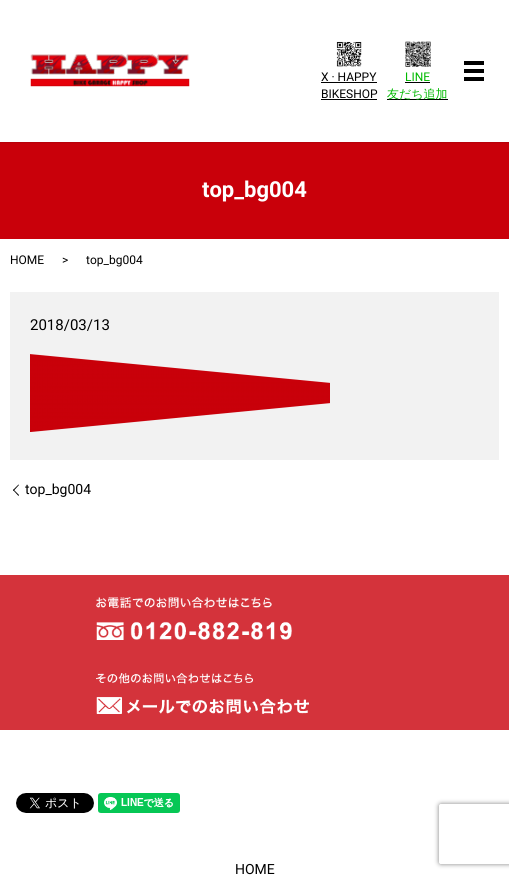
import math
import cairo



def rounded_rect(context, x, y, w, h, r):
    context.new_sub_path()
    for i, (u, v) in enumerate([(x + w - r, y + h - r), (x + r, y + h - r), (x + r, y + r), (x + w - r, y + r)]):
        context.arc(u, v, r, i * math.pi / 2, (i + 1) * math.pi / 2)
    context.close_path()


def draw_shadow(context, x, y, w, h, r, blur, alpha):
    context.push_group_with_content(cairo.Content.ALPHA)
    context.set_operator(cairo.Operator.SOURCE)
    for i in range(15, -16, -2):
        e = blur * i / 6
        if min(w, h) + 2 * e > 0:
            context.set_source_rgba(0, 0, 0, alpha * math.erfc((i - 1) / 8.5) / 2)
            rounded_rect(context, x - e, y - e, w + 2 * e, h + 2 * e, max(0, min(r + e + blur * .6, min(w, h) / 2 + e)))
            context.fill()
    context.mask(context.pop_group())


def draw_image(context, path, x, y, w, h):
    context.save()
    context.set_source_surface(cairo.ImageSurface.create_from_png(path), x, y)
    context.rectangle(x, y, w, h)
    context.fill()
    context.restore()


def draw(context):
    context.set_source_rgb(1, 1, 1)
    context.paint()
    context.set_source_rgb(201 / 255, 0, 10 / 255)
    context.rectangle(0, 142, 509, 97)
    context.fill()
    context.set_source_rgb(0, 0, 0)
    draw_shadow(context, 0, 1, 509, 142, 0, 0.5, 0.1)
    context.set_source_rgb(1, 1, 1)
    context.rectangle(0, 0, 509, 142)
    context.fill()
    draw_image(context, "images/1.png", 30, 54, 160, 33)
    draw_image(context, "images/2.png", 336, 41, 26, 26)
    context.set_source_rgb(0, 0, 0)
    context.rectangle(321, 82, 56, 1)
    context.fill()
    context.rectangle(321, 99, 56, 1)
    context.fill()
    draw_image(context, "images/3.png", 405, 41, 26, 26)
    context.rectangle(405, 82, 25, 1)
    context.fill()
    context.rectangle(387, 99, 61, 1)
    context.fill()
    context.rectangle(464, 61, 20, 4)
    context.fill()
    context.rectangle(464, 69, 20, 4)
    context.fill()
    context.rectangle(464, 77, 20, 4)
    context.fill()
    context.set_source_rgb(242 / 255, 242 / 255, 242 / 255)
    context.rectangle(10, 292, 489, 168)
    context.fill()
    draw_image(context, "images/4.png", 30, 354, 300, 78)
    context.set_source_rgb(0, 0, 0)
    context.new_path()
    context.move_to(13, 490)
    context.line_to(18.5, 484.5)
    context.line_to(19, 485)
    context.line_to(13.5, 491)
    context.close_path()
    context.fill()
    context.new_path()
    context.move_to(18.5, 496)
    context.line_to(13, 490)
    context.line_to(13.5, 489.5)
    context.line_to(19, 495)
    context.close_path()
    context.fill()
    context.set_source_rgb(212 / 255, 51 / 255, 59 / 255)
    context.rectangle(0, 575, 509, 155)
    context.fill()
    draw_image(context, "images/5.png", 96, 597, 196, 43)
    draw_image(context, "images/6.png", 96, 673, 213, 41)
    draw_image(context, "images/7.png", 16, 793, 78, 20)
    draw_image(context, "images/8.png", 98, 793, 82, 20)
    context.save()
    context.set_fill_rule(cairo.FillRule.EVEN_ODD)
    context.new_path()
    context.move_to(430, 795)
    context.line_to(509, 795)
    context.line_to(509, 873)
    context.line_to(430, 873)
    context.close_path()
    context.move_to(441, 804)
    context.line_to(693, 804)
    context.curve_to(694, 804, 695, 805, 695, 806)
    context.line_to(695, 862)
    context.curve_to(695, 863, 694, 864, 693, 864)
    context.line_to(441, 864)
    context.curve_to(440, 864, 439, 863, 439, 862)
    context.line_to(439, 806)
    context.curve_to(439, 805, 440, 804, 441, 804)
    context.close_path()
    context.clip()
    context.set_source_rgb(128 / 255, 128 / 255, 128 / 255)
    draw_shadow(context, 439, 804, 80, 60, 2, 2.5, 1)
    context.restore()
    context.select_font_face("Roboto")
    context.set_font_size(12)
    context.set_source_rgb(0, 0, 0)
    context.move_to(321, 81)
    context.show_text("X · HAPPY")
    context.move_to(321, 98)
    context.show_text("BIKESHOP")
    context.set_source_rgb(0, 185 / 255, 0)
    context.move_to(405, 81)
    context.show_text("LINE")
    context.select_font_face("WenQuanYi Zen Hei Medium")
    context.move_to(387, 98)
    context.show_text("友だち追加")
    context.select_font_face("Roboto", cairo.FontSlant.NORMAL, cairo.FontWeight.BOLD)
    context.set_font_size(22)
    context.set_source_rgb(1, 1, 1)
    context.move_to(202, 197)
    context.show_text("top_bg004")
    context.select_font_face("Roboto")
    context.set_font_size(12)
    context.set_source_rgb(0, 0, 0)
    context.move_to(10, 264)
    context.show_text("HOME")
    context.move_to(62, 264)
    context.show_text(">")
    context.move_to(86, 264)
    context.show_text("top_bg004")
    context.set_font_size(15)
    context.move_to(30, 330)
    context.show_text("2018/03/13")
    context.set_font_size(14)
    context.move_to(25, 494)
    context.show_text("top_bg004")
    context.move_to(235, 874)
    context.show_text("HOME")


surface = cairo.ImageSurface(cairo.Format.RGB24, 509, 878)
context = cairo.Context(surface)
options = cairo.FontOptions()
options.set_hint_metrics(cairo.HintMetrics.OFF)
options.set_hint_style(cairo.HintStyle.NONE)
context.set_font_options(options)
context.set_miter_limit(4)
draw(context)
surface.write_to_png("out.png")
